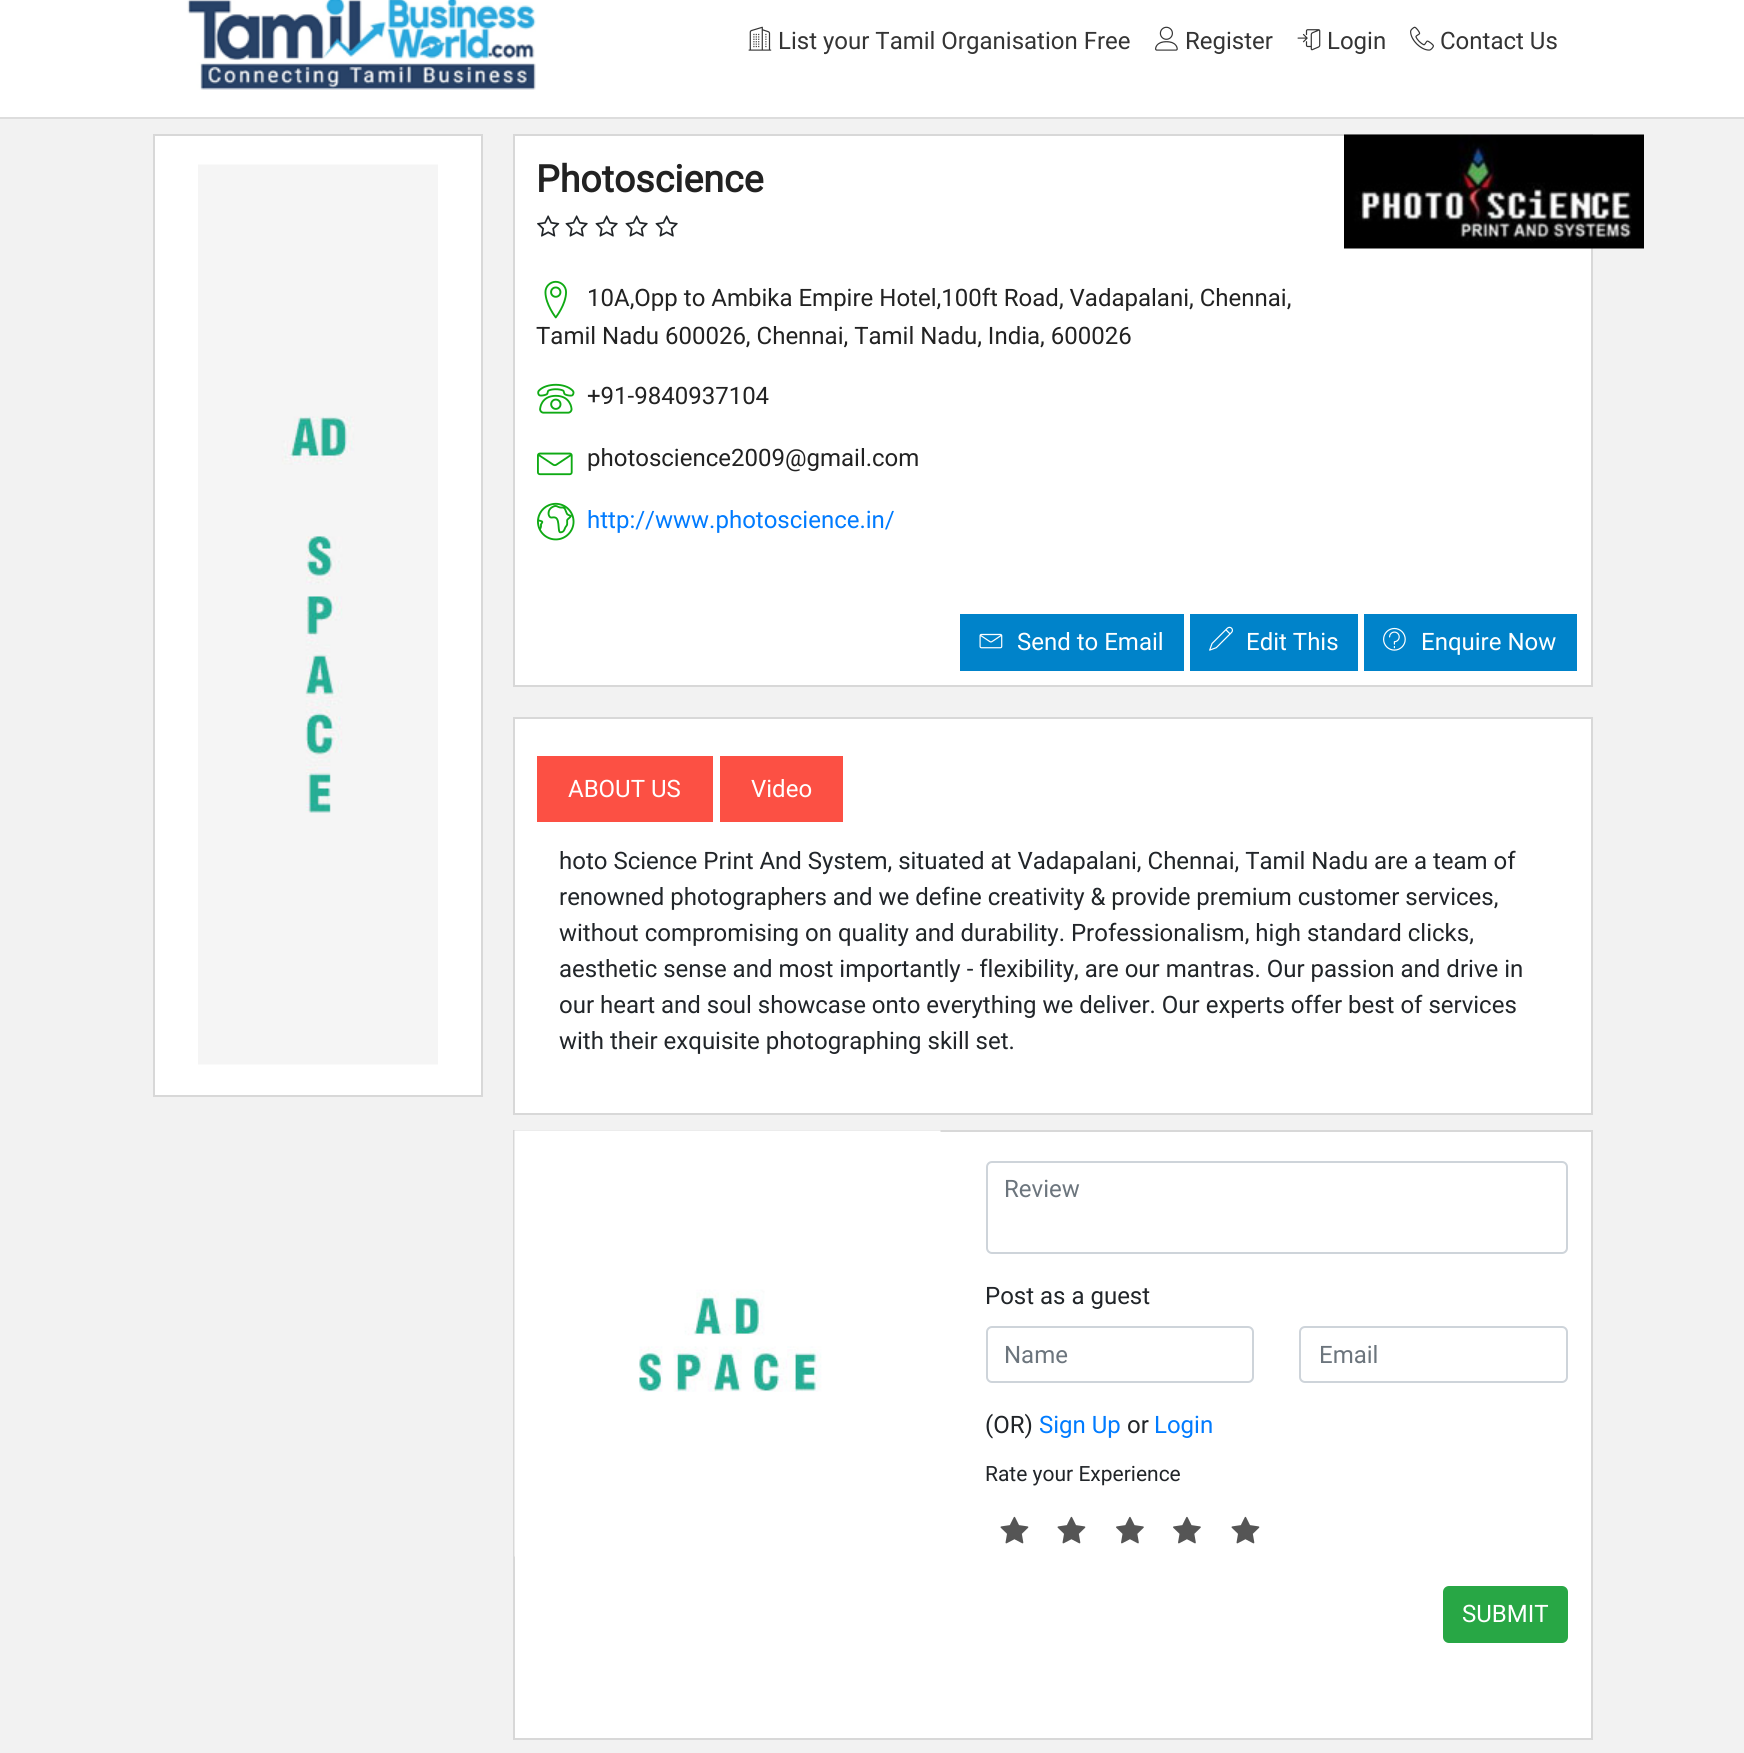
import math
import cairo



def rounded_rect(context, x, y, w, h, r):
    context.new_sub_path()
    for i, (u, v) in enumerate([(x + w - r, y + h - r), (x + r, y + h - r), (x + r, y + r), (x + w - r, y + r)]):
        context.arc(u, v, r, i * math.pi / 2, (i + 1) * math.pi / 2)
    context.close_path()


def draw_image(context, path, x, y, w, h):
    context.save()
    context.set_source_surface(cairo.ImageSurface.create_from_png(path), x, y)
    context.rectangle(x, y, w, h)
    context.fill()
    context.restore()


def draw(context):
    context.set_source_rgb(1, 1, 1)
    context.paint()
    context.set_source_rgb(221 / 255, 221 / 255, 221 / 255)
    context.rectangle(0, 117, 1744, 2)
    context.fill()
    draw_image(context, "images/1.png", 187, 0, 349, 90)
    draw_image(context, "images/2.png", 748, 26, 24, 25)
    draw_image(context, "images/3.png", 1155, 26, 23, 25)
    draw_image(context, "images/4.png", 1297, 29, 24, 22)
    draw_image(context, "images/5.png", 1410, 26, 24, 25)
    context.set_source_rgb(242 / 255, 242 / 255, 242 / 255)
    context.rectangle(0, 119, 1744, 1634)
    context.fill()
    context.set_source_rgb(1, 1, 1)
    context.rectangle(154, 135, 328, 961)
    context.fill_preserve()
    context.set_source_rgb(216 / 255, 216 / 255, 216 / 255)
    context.stroke()
    draw_image(context, "images/6.png", 198, 164, 240, 901)
    context.set_source_rgb(1, 1, 1)
    context.rectangle(514, 135, 1078, 551)
    context.fill_preserve()
    context.set_source_rgb(216 / 255, 216 / 255, 216 / 255)
    context.stroke()
    draw_image(context, "images/7.png", 537, 215, 23, 22)
    draw_image(context, "images/8.png", 565, 215, 23, 22)
    draw_image(context, "images/8.png", 595, 215, 23, 22)
    draw_image(context, "images/8.png", 625, 215, 23, 22)
    draw_image(context, "images/8.png", 655, 215, 23, 22)
    draw_image(context, "images/9.png", 544, 280, 23, 39)
    draw_image(context, "images/10.png", 537, 383, 38, 31)
    draw_image(context, "images/11.png", 537, 452, 36, 24)
    draw_image(context, "images/12.png", 537, 502, 38, 39)
    draw_image(context, "images/13.png", 1344, 134, 300, 115)
    context.set_source_rgb(0, 131 / 255, 202 / 255)
    context.rectangle(960, 614, 224, 57)
    context.fill()
    draw_image(context, "images/14.png", 979, 633, 24, 16)
    context.rectangle(1190, 614, 168, 57)
    context.fill()
    draw_image(context, "images/15.png", 1209, 626, 24, 25)
    context.rectangle(1364, 614, 213, 57)
    context.fill()
    draw_image(context, "images/16.png", 1383, 627, 23, 24)
    context.set_source_rgb(1, 1, 1)
    context.rectangle(514, 718, 1078, 396)
    context.fill_preserve()
    context.set_source_rgb(216 / 255, 216 / 255, 216 / 255)
    context.stroke()
    context.set_source_rgb(252 / 255, 80 / 255, 68 / 255)
    context.rectangle(537, 756, 176, 66)
    context.fill()
    context.rectangle(720, 756, 123, 66)
    context.fill()
    context.set_source_rgb(1, 1, 1)
    context.rectangle(514, 1131, 1078, 608)
    context.fill_preserve()
    context.set_source_rgb(216 / 255, 216 / 255, 216 / 255)
    context.stroke()
    draw_image(context, "images/17.png", 514, 1130, 427, 427)
    rounded_rect(context, 987, 1162, 580, 91, 5)
    context.set_source_rgb(206 / 255, 212 / 255, 218 / 255)
    context.stroke()
    rounded_rect(context, 987, 1327, 266, 55, 5)
    context.stroke()
    rounded_rect(context, 1300, 1327, 267, 55, 5)
    context.stroke()
    draw_image(context, "images/18.png", 1000, 1516, 29, 28)
    draw_image(context, "images/18.png", 1057, 1516, 29, 28)
    draw_image(context, "images/19.png", 1116, 1516, 28, 28)
    draw_image(context, "images/19.png", 1173, 1516, 28, 28)
    draw_image(context, "images/18.png", 1231, 1516, 29, 28)
    context.set_source_rgb(40 / 255, 167 / 255, 69 / 255)
    rounded_rect(context, 1444, 1587, 123, 55, 5)
    context.fill_preserve()
    context.stroke()
    context.select_font_face("Roboto")
    context.set_font_size(24)
    context.set_source_rgb(52 / 255, 52 / 255, 52 / 255)
    context.move_to(778, 49)
    context.show_text("List your Tamil Organisation Free")
    context.move_to(1185, 49)
    context.show_text("Register")
    context.move_to(1327, 49)
    context.show_text("Login")
    context.move_to(1440, 49)
    context.show_text("Contact Us")
    context.select_font_face("Roboto", cairo.FontSlant.NORMAL, cairo.FontWeight.BOLD)
    context.set_font_size(37.5)
    context.set_source_rgb(34 / 255, 34 / 255, 34 / 255)
    context.move_to(536, 192)
    context.show_text("Photoscience")
    context.select_font_face("Roboto")
    context.set_font_size(24)
    context.move_to(587, 306)
    context.show_text("10A,Opp to Ambika Empire Hotel,100ft Road, Vadapalani, Chennai,")
    context.move_to(536, 344)
    context.show_text("Tamil Nadu 600026, Chennai, Tamil Nadu, India, 600026")
    context.move_to(587, 404)
    context.show_text("+91-9840937104")
    context.move_to(587, 466)
    context.show_text("photoscience2009@gmail.com")
    context.set_source_rgb(0, 123 / 255, 1)
    context.move_to(587, 528)
    context.show_text("http://www.photoscience.in/")
    context.set_source_rgb(1, 1, 1)
    context.move_to(1017, 650)
    context.show_text("Send to Email")
    context.move_to(1246, 650)
    context.show_text("Edit This")
    context.move_to(1421, 650)
    context.show_text("Enquire Now")
    context.move_to(568, 797)
    context.show_text("ABOUT US")
    context.move_to(751, 797)
    context.show_text("Video")
    context.set_source_rgb(33 / 255, 37 / 255, 41 / 255)
    context.move_to(559, 869)
    context.show_text("hoto Science Print And System, situated at Vadapalani, Chennai, Tamil Nadu are a team of")
    context.move_to(559, 905)
    context.show_text("renowned photographers and we define creativity & provide premium customer services,")
    context.move_to(559, 941)
    context.show_text("without compromising on quality and durability. Professionalism, high standard clicks,")
    context.move_to(559, 977)
    context.show_text("aesthetic sense and most importantly - flexibility, are our mantras. Our passion and drive in")
    context.move_to(559, 1013)
    context.show_text("our heart and soul showcase onto everything we deliver. Our experts offer best of services")
    context.move_to(559, 1049)
    context.show_text("with their exquisite photographing skill set.")
    context.set_source_rgb(108 / 255, 117 / 255, 125 / 255)
    context.move_to(1004, 1197)
    context.show_text("Review")
    context.set_source_rgb(33 / 255, 37 / 255, 41 / 255)
    context.move_to(985, 1304)
    context.show_text("Post as a guest")
    context.set_source_rgb(108 / 255, 117 / 255, 125 / 255)
    context.move_to(1004, 1363)
    context.show_text("Name")
    context.move_to(1319, 1363)
    context.show_text("Email")
    context.set_source_rgb(33 / 255, 37 / 255, 41 / 255)
    context.move_to(985, 1433)
    context.show_text("(OR)")
    context.set_source_rgb(0, 123 / 255, 1)
    context.move_to(1039, 1433)
    context.show_text("Sign Up")
    context.set_source_rgb(33 / 255, 37 / 255, 41 / 255)
    context.move_to(1127, 1433)
    context.show_text("or")
    context.set_source_rgb(0, 123 / 255, 1)
    context.move_to(1154, 1433)
    context.show_text("Login")
    context.set_font_size(21)
    context.set_source_rgb(33 / 255, 37 / 255, 41 / 255)
    context.move_to(985, 1481)
    context.show_text("Rate your Experience")
    context.set_font_size(24)
    context.set_source_rgb(1, 1, 1)
    context.move_to(1462, 1622)
    context.show_text("SUBMIT")


surface = cairo.ImageSurface(cairo.Format.RGB24, 1744, 1753)
context = cairo.Context(surface)
options = cairo.FontOptions()
options.set_hint_metrics(cairo.HintMetrics.OFF)
options.set_hint_style(cairo.HintStyle.NONE)
context.set_font_options(options)
context.set_miter_limit(4)
draw(context)
surface.write_to_png("out.png")
